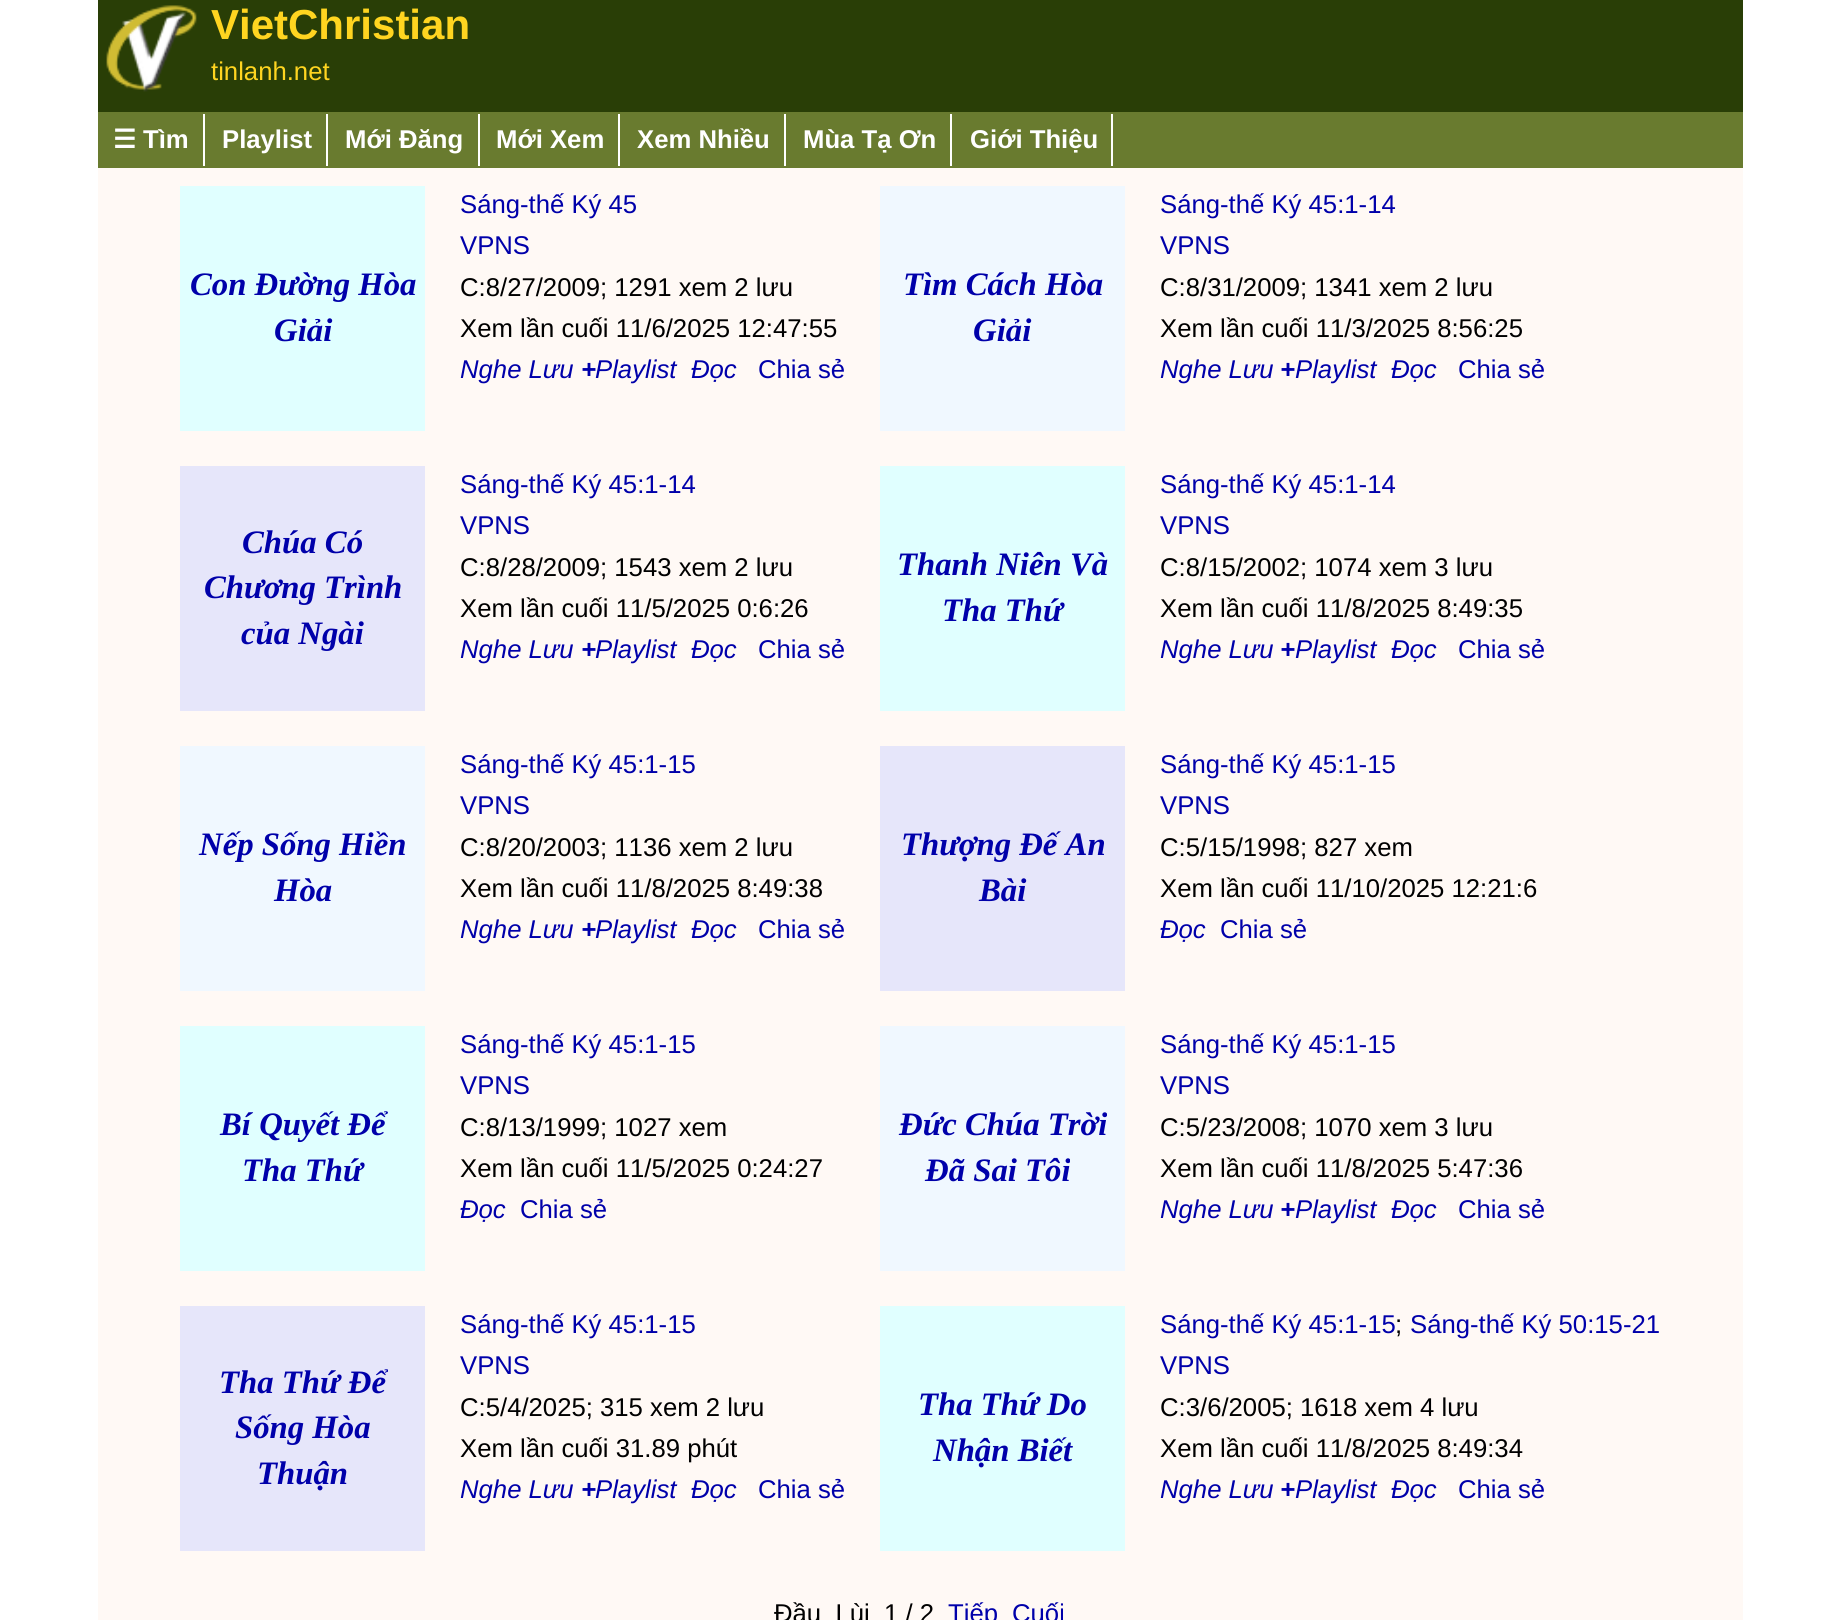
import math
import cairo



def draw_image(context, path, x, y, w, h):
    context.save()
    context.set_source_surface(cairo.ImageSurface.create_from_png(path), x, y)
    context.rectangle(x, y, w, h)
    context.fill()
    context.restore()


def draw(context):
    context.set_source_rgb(1, 1, 1)
    context.paint()
    context.set_source_rgb(1, 249 / 255, 245 / 255)
    context.rectangle(98, 168, 1645, 1452)
    context.fill()
    context.set_source_rgb(41 / 255, 62 / 255, 6 / 255)
    context.rectangle(98, 0, 1645, 112)
    context.fill()
    draw_image(context, "images/1.png", 106, 5, 91, 87)
    context.set_source_rgb(105 / 255, 123 / 255, 47 / 255)
    context.rectangle(98, 112, 1645, 56)
    context.fill()
    context.set_source_rgb(1, 1, 1)
    context.rectangle(203, 114, 2, 52)
    context.fill()
    context.rectangle(326, 114, 2, 52)
    context.fill()
    context.rectangle(478, 114, 2, 52)
    context.fill()
    context.rectangle(618, 114, 2, 52)
    context.fill()
    context.rectangle(784, 114, 2, 52)
    context.fill()
    context.rectangle(950, 114, 2, 52)
    context.fill()
    context.rectangle(1111, 114, 2, 52)
    context.fill()
    context.set_source_rgb(224 / 255, 1, 1)
    context.rectangle(180, 186, 245, 245)
    context.fill()
    context.set_source_rgb(240 / 255, 248 / 255, 1)
    context.rectangle(880, 186, 245, 245)
    context.fill()
    context.set_source_rgb(230 / 255, 230 / 255, 250 / 255)
    context.rectangle(180, 466, 245, 245)
    context.fill()
    context.set_source_rgb(224 / 255, 1, 1)
    context.rectangle(880, 466, 245, 245)
    context.fill()
    context.set_source_rgb(240 / 255, 248 / 255, 1)
    context.rectangle(180, 746, 245, 245)
    context.fill()
    context.set_source_rgb(230 / 255, 230 / 255, 250 / 255)
    context.rectangle(880, 746, 245, 245)
    context.fill()
    context.set_source_rgb(224 / 255, 1, 1)
    context.rectangle(180, 1026, 245, 245)
    context.fill()
    context.set_source_rgb(240 / 255, 248 / 255, 1)
    context.rectangle(880, 1026, 245, 245)
    context.fill()
    context.set_source_rgb(230 / 255, 230 / 255, 250 / 255)
    context.rectangle(180, 1306, 245, 245)
    context.fill()
    context.set_source_rgb(224 / 255, 1, 1)
    context.rectangle(880, 1306, 245, 245)
    context.fill()
    context.select_font_face("Liberation Sans", cairo.FontSlant.NORMAL, cairo.FontWeight.BOLD)
    context.set_font_size(42)
    context.set_source_rgb(1, 213 / 255, 32 / 255)
    context.move_to(211, 39)
    context.show_text("VietChristian")
    context.select_font_face("Liberation Sans")
    context.set_font_size(25.7)
    context.move_to(211, 80)
    context.show_text("tinlanh.net")
    context.select_font_face("DejaVu Sans", cairo.FontSlant.NORMAL, cairo.FontWeight.BOLD)
    context.set_source_rgb(1, 1, 1)
    context.move_to(113, 148)
    context.show_text("☰")
    context.select_font_face("Liberation Sans", cairo.FontSlant.NORMAL, cairo.FontWeight.BOLD)
    context.move_to(143, 148)
    context.show_text("Tìm")
    context.move_to(222, 148)
    context.show_text("Playlist")
    context.move_to(345, 148)
    context.show_text("Mới Đăng")
    context.move_to(496, 148)
    context.show_text("Mới Xem")
    context.move_to(637, 148)
    context.show_text("Xem Nhiều")
    context.move_to(803, 148)
    context.show_text("Mùa Tạ Ơn")
    context.move_to(970, 148)
    context.show_text("Giới Thiệu")
    context.select_font_face("Liberation Serif", cairo.FontSlant.ITALIC, cairo.FontWeight.BOLD)
    context.set_font_size(32.75)
    context.set_source_rgb(0, 0, 170 / 255)
    context.move_to(190, 295)
    context.show_text("Con Đường Hòa")
    context.move_to(274, 341)
    context.show_text("Giải")
    context.select_font_face("Liberation Sans")
    context.set_font_size(25.7)
    context.move_to(460, 213)
    context.show_text("Sáng-thế Ký 45")
    context.move_to(460, 254)
    context.show_text("VPNS")
    context.set_source_rgb(0, 0, 0)
    context.move_to(460, 296)
    context.show_text("C:8/27/2009; 1291 xem 2 lưu")
    context.move_to(460, 337)
    context.show_text("Xem lần cuối 11/6/2025 12:47:55")
    context.select_font_face("Liberation Sans", cairo.FontSlant.ITALIC)
    context.set_source_rgb(0, 0, 170 / 255)
    context.move_to(460, 378)
    context.show_text("Nghe Lưu")
    context.select_font_face("Liberation Sans", cairo.FontSlant.ITALIC, cairo.FontWeight.BOLD)
    context.move_to(581, 378)
    context.show_text("+")
    context.select_font_face("Liberation Sans", cairo.FontSlant.ITALIC)
    context.move_to(595, 378)
    context.show_text("Playlist")
    context.move_to(691, 378)
    context.show_text("Đọc")
    context.select_font_face("Liberation Sans")
    context.move_to(758, 378)
    context.show_text("Chia sẻ")
    context.select_font_face("Liberation Serif", cairo.FontSlant.ITALIC, cairo.FontWeight.BOLD)
    context.set_font_size(32.75)
    context.move_to(903, 295)
    context.show_text("Tìm Cách Hòa")
    context.move_to(973, 341)
    context.show_text("Giải")
    context.select_font_face("Liberation Sans")
    context.set_font_size(25.7)
    context.move_to(1160, 213)
    context.show_text("Sáng-thế Ký 45:1-14")
    context.move_to(1160, 254)
    context.show_text("VPNS")
    context.set_source_rgb(0, 0, 0)
    context.move_to(1160, 296)
    context.show_text("C:8/31/2009; 1341 xem 2 lưu")
    context.move_to(1160, 337)
    context.show_text("Xem lần cuối 11/3/2025 8:56:25")
    context.select_font_face("Liberation Sans", cairo.FontSlant.ITALIC)
    context.set_source_rgb(0, 0, 170 / 255)
    context.move_to(1160, 378)
    context.show_text("Nghe Lưu")
    context.select_font_face("Liberation Sans", cairo.FontSlant.ITALIC, cairo.FontWeight.BOLD)
    context.move_to(1280, 378)
    context.show_text("+")
    context.select_font_face("Liberation Sans", cairo.FontSlant.ITALIC)
    context.move_to(1295, 378)
    context.show_text("Playlist")
    context.move_to(1391, 378)
    context.show_text("Đọc")
    context.select_font_face("Liberation Sans")
    context.move_to(1458, 378)
    context.show_text("Chia sẻ")
    context.select_font_face("Liberation Serif", cairo.FontSlant.ITALIC, cairo.FontWeight.BOLD)
    context.set_font_size(32.75)
    context.move_to(242, 553)
    context.show_text("Chúa Có")
    context.move_to(204, 598)
    context.show_text("Chương Trình")
    context.move_to(241, 644)
    context.show_text("của Ngài")
    context.select_font_face("Liberation Sans")
    context.set_font_size(25.7)
    context.move_to(460, 493)
    context.show_text("Sáng-thế Ký 45:1-14")
    context.move_to(460, 534)
    context.show_text("VPNS")
    context.set_source_rgb(0, 0, 0)
    context.move_to(460, 576)
    context.show_text("C:8/28/2009; 1543 xem 2 lưu")
    context.move_to(460, 617)
    context.show_text("Xem lần cuối 11/5/2025 0:6:26")
    context.select_font_face("Liberation Sans", cairo.FontSlant.ITALIC)
    context.set_source_rgb(0, 0, 170 / 255)
    context.move_to(460, 658)
    context.show_text("Nghe Lưu")
    context.select_font_face("Liberation Sans", cairo.FontSlant.ITALIC, cairo.FontWeight.BOLD)
    context.move_to(581, 658)
    context.show_text("+")
    context.select_font_face("Liberation Sans", cairo.FontSlant.ITALIC)
    context.move_to(595, 658)
    context.show_text("Playlist")
    context.move_to(691, 658)
    context.show_text("Đọc")
    context.select_font_face("Liberation Sans")
    context.move_to(758, 658)
    context.show_text("Chia sẻ")
    context.select_font_face("Liberation Serif", cairo.FontSlant.ITALIC, cairo.FontWeight.BOLD)
    context.set_font_size(32.75)
    context.move_to(897, 575)
    context.show_text("Thanh Niên Và")
    context.move_to(942, 621)
    context.show_text("Tha Thứ")
    context.select_font_face("Liberation Sans")
    context.set_font_size(25.7)
    context.move_to(1160, 493)
    context.show_text("Sáng-thế Ký 45:1-14")
    context.move_to(1160, 534)
    context.show_text("VPNS")
    context.set_source_rgb(0, 0, 0)
    context.move_to(1160, 576)
    context.show_text("C:8/15/2002; 1074 xem 3 lưu")
    context.move_to(1160, 617)
    context.show_text("Xem lần cuối 11/8/2025 8:49:35")
    context.select_font_face("Liberation Sans", cairo.FontSlant.ITALIC)
    context.set_source_rgb(0, 0, 170 / 255)
    context.move_to(1160, 658)
    context.show_text("Nghe Lưu")
    context.select_font_face("Liberation Sans", cairo.FontSlant.ITALIC, cairo.FontWeight.BOLD)
    context.move_to(1280, 658)
    context.show_text("+")
    context.select_font_face("Liberation Sans", cairo.FontSlant.ITALIC)
    context.move_to(1295, 658)
    context.show_text("Playlist")
    context.move_to(1391, 658)
    context.show_text("Đọc")
    context.select_font_face("Liberation Sans")
    context.move_to(1458, 658)
    context.show_text("Chia sẻ")
    context.select_font_face("Liberation Serif", cairo.FontSlant.ITALIC, cairo.FontWeight.BOLD)
    context.set_font_size(32.75)
    context.move_to(199, 855)
    context.show_text("Nếp Sống Hiền")
    context.move_to(274, 901)
    context.show_text("Hòa")
    context.select_font_face("Liberation Sans")
    context.set_font_size(25.7)
    context.move_to(460, 773)
    context.show_text("Sáng-thế Ký 45:1-15")
    context.move_to(460, 814)
    context.show_text("VPNS")
    context.set_source_rgb(0, 0, 0)
    context.move_to(460, 856)
    context.show_text("C:8/20/2003; 1136 xem 2 lưu")
    context.move_to(460, 897)
    context.show_text("Xem lần cuối 11/8/2025 8:49:38")
    context.select_font_face("Liberation Sans", cairo.FontSlant.ITALIC)
    context.set_source_rgb(0, 0, 170 / 255)
    context.move_to(460, 938)
    context.show_text("Nghe Lưu")
    context.select_font_face("Liberation Sans", cairo.FontSlant.ITALIC, cairo.FontWeight.BOLD)
    context.move_to(581, 938)
    context.show_text("+")
    context.select_font_face("Liberation Sans", cairo.FontSlant.ITALIC)
    context.move_to(595, 938)
    context.show_text("Playlist")
    context.move_to(691, 938)
    context.show_text("Đọc")
    context.select_font_face("Liberation Sans")
    context.move_to(758, 938)
    context.show_text("Chia sẻ")
    context.select_font_face("Liberation Serif", cairo.FontSlant.ITALIC, cairo.FontWeight.BOLD)
    context.set_font_size(32.75)
    context.move_to(901, 855)
    context.show_text("Thượng Đế An")
    context.move_to(979, 901)
    context.show_text("Bài")
    context.select_font_face("Liberation Sans")
    context.set_font_size(25.7)
    context.move_to(1160, 773)
    context.show_text("Sáng-thế Ký 45:1-15")
    context.move_to(1160, 814)
    context.show_text("VPNS")
    context.set_source_rgb(0, 0, 0)
    context.move_to(1160, 856)
    context.show_text("C:5/15/1998; 827 xem")
    context.move_to(1160, 897)
    context.show_text("Xem lần cuối 11/10/2025 12:21:6")
    context.select_font_face("Liberation Sans", cairo.FontSlant.ITALIC)
    context.set_source_rgb(0, 0, 170 / 255)
    context.move_to(1160, 938)
    context.show_text("Đọc")
    context.select_font_face("Liberation Sans")
    context.move_to(1220, 938)
    context.show_text("Chia sẻ")
    context.select_font_face("Liberation Serif", cairo.FontSlant.ITALIC, cairo.FontWeight.BOLD)
    context.set_font_size(32.75)
    context.move_to(220, 1135)
    context.show_text("Bí Quyết Để")
    context.move_to(242, 1181)
    context.show_text("Tha Thứ")
    context.select_font_face("Liberation Sans")
    context.set_font_size(25.7)
    context.move_to(460, 1053)
    context.show_text("Sáng-thế Ký 45:1-15")
    context.move_to(460, 1094)
    context.show_text("VPNS")
    context.set_source_rgb(0, 0, 0)
    context.move_to(460, 1136)
    context.show_text("C:8/13/1999; 1027 xem")
    context.move_to(460, 1177)
    context.show_text("Xem lần cuối 11/5/2025 0:24:27")
    context.select_font_face("Liberation Sans", cairo.FontSlant.ITALIC)
    context.set_source_rgb(0, 0, 170 / 255)
    context.move_to(460, 1218)
    context.show_text("Đọc")
    context.select_font_face("Liberation Sans")
    context.move_to(520, 1218)
    context.show_text("Chia sẻ")
    context.select_font_face("Liberation Serif", cairo.FontSlant.ITALIC, cairo.FontWeight.BOLD)
    context.set_font_size(32.75)
    context.move_to(899, 1135)
    context.show_text("Đức Chúa Trời")
    context.move_to(925, 1181)
    context.show_text("Đã Sai Tôi")
    context.select_font_face("Liberation Sans")
    context.set_font_size(25.7)
    context.move_to(1160, 1053)
    context.show_text("Sáng-thế Ký 45:1-15")
    context.move_to(1160, 1094)
    context.show_text("VPNS")
    context.set_source_rgb(0, 0, 0)
    context.move_to(1160, 1136)
    context.show_text("C:5/23/2008; 1070 xem 3 lưu")
    context.move_to(1160, 1177)
    context.show_text("Xem lần cuối 11/8/2025 5:47:36")
    context.select_font_face("Liberation Sans", cairo.FontSlant.ITALIC)
    context.set_source_rgb(0, 0, 170 / 255)
    context.move_to(1160, 1218)
    context.show_text("Nghe Lưu")
    context.select_font_face("Liberation Sans", cairo.FontSlant.ITALIC, cairo.FontWeight.BOLD)
    context.move_to(1280, 1218)
    context.show_text("+")
    context.select_font_face("Liberation Sans", cairo.FontSlant.ITALIC)
    context.move_to(1295, 1218)
    context.show_text("Playlist")
    context.move_to(1391, 1218)
    context.show_text("Đọc")
    context.select_font_face("Liberation Sans")
    context.move_to(1458, 1218)
    context.show_text("Chia sẻ")
    context.select_font_face("Liberation Serif", cairo.FontSlant.ITALIC, cairo.FontWeight.BOLD)
    context.set_font_size(32.75)
    context.move_to(219, 1393)
    context.show_text("Tha Thứ Để")
    context.move_to(235, 1438)
    context.show_text("Sống Hòa")
    context.move_to(257, 1484)
    context.show_text("Thuận")
    context.select_font_face("Liberation Sans")
    context.set_font_size(25.7)
    context.move_to(460, 1333)
    context.show_text("Sáng-thế Ký 45:1-15")
    context.move_to(460, 1374)
    context.show_text("VPNS")
    context.set_source_rgb(0, 0, 0)
    context.move_to(460, 1416)
    context.show_text("C:5/4/2025; 315 xem 2 lưu")
    context.move_to(460, 1457)
    context.show_text("Xem lần cuối 31.89 phút")
    context.select_font_face("Liberation Sans", cairo.FontSlant.ITALIC)
    context.set_source_rgb(0, 0, 170 / 255)
    context.move_to(460, 1498)
    context.show_text("Nghe Lưu")
    context.select_font_face("Liberation Sans", cairo.FontSlant.ITALIC, cairo.FontWeight.BOLD)
    context.move_to(581, 1498)
    context.show_text("+")
    context.select_font_face("Liberation Sans", cairo.FontSlant.ITALIC)
    context.move_to(595, 1498)
    context.show_text("Playlist")
    context.move_to(691, 1498)
    context.show_text("Đọc")
    context.select_font_face("Liberation Sans")
    context.move_to(758, 1498)
    context.show_text("Chia sẻ")
    context.select_font_face("Liberation Serif", cairo.FontSlant.ITALIC, cairo.FontWeight.BOLD)
    context.set_font_size(32.75)
    context.move_to(918, 1415)
    context.show_text("Tha Thứ Do")
    context.move_to(933, 1461)
    context.show_text("Nhận Biết")
    context.select_font_face("Liberation Sans")
    context.set_font_size(25.7)
    context.move_to(1160, 1333)
    context.show_text("Sáng-thế Ký 45:1-15")
    context.set_source_rgb(0, 0, 0)
    context.move_to(1395, 1333)
    context.show_text(";")
    context.set_source_rgb(0, 0, 170 / 255)
    context.move_to(1410, 1333)
    context.show_text("Sáng-thế Ký 50:15-21")
    context.move_to(1160, 1374)
    context.show_text("VPNS")
    context.set_source_rgb(0, 0, 0)
    context.move_to(1160, 1416)
    context.show_text("C:3/6/2005; 1618 xem 4 lưu")
    context.move_to(1160, 1457)
    context.show_text("Xem lần cuối 11/8/2025 8:49:34")
    context.select_font_face("Liberation Sans", cairo.FontSlant.ITALIC)
    context.set_source_rgb(0, 0, 170 / 255)
    context.move_to(1160, 1498)
    context.show_text("Nghe Lưu")
    context.select_font_face("Liberation Sans", cairo.FontSlant.ITALIC, cairo.FontWeight.BOLD)
    context.move_to(1280, 1498)
    context.show_text("+")
    context.select_font_face("Liberation Sans", cairo.FontSlant.ITALIC)
    context.move_to(1295, 1498)
    context.show_text("Playlist")
    context.move_to(1391, 1498)
    context.show_text("Đọc")
    context.select_font_face("Liberation Sans")
    context.move_to(1458, 1498)
    context.show_text("Chia sẻ")
    context.set_source_rgb(0, 0, 0)
    context.move_to(774, 1622)
    context.show_text("Đầu  Lùi  1 / 2")
    context.set_source_rgb(0, 0, 170 / 255)
    context.move_to(948, 1622)
    context.show_text("Tiếp")
    context.move_to(1012, 1622)
    context.show_text("Cuối")


surface = cairo.ImageSurface(cairo.Format.RGB24, 1839, 1620)
context = cairo.Context(surface)
options = cairo.FontOptions()
options.set_hint_metrics(cairo.HintMetrics.OFF)
options.set_hint_style(cairo.HintStyle.NONE)
context.set_font_options(options)
context.set_miter_limit(4)
draw(context)
surface.write_to_png("out.png")
